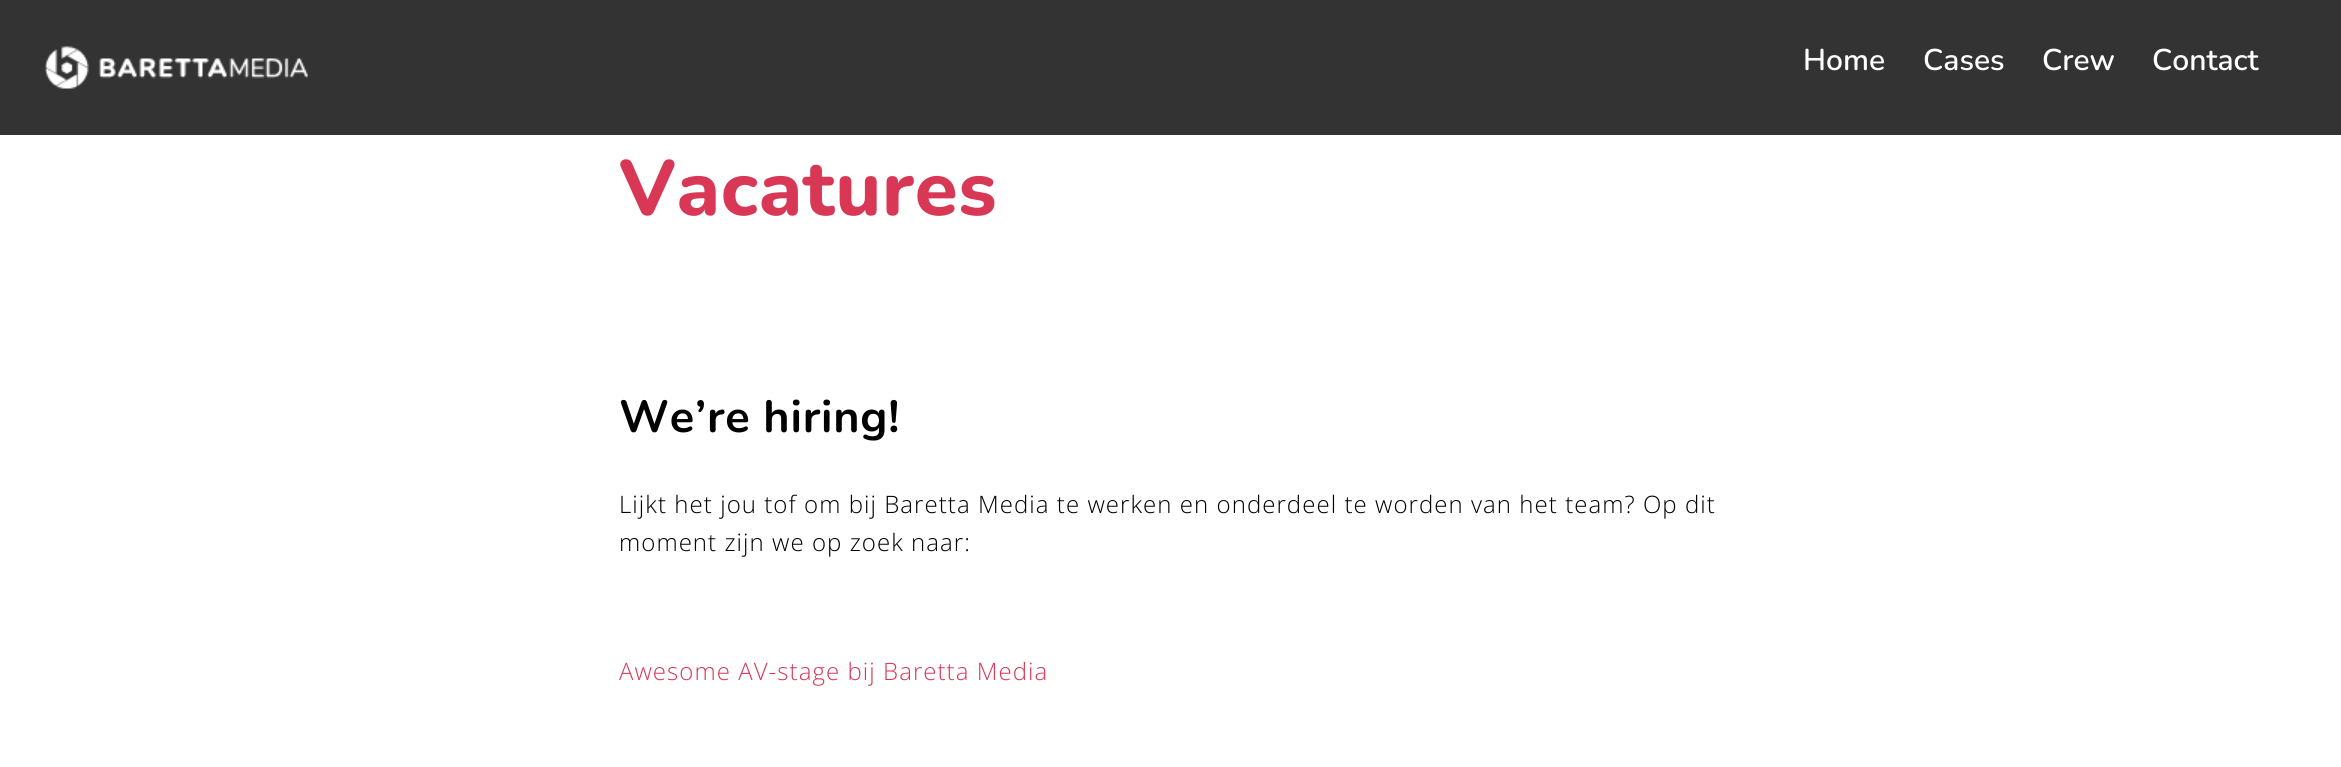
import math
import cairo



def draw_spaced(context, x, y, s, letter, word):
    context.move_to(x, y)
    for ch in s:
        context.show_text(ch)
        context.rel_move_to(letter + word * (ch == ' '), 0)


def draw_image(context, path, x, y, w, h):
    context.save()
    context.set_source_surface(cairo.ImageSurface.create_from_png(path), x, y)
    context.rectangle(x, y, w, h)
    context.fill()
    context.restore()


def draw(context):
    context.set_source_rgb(1, 1, 1)
    context.paint()
    context.set_source_rgb(51 / 255, 51 / 255, 51 / 255)
    context.rectangle(0, 0, 2341, 135)
    context.fill()
    draw_image(context, "images/1.png", 45, 46, 263, 43)
    context.select_font_face("Nunito SemiBold")
    context.set_font_size(30)
    context.set_source_rgb(1, 1, 1)
    context.move_to(1803, 70)
    context.show_text("Home")
    context.move_to(1923, 70)
    context.show_text("Cases")
    context.move_to(2042, 70)
    context.show_text("Crew")
    context.move_to(2152, 70)
    context.show_text("Contact")
    context.select_font_face("Nunito ExtraBold")
    context.set_font_size(78)
    context.set_source_rgb(216 / 255, 56 / 255, 86 / 255)
    draw_spaced(context, 619, 215, "Vacatures", 0.75, 0)
    context.select_font_face("Nunito", cairo.FontSlant.NORMAL, cairo.FontWeight.BOLD)
    context.set_font_size(45)
    context.set_source_rgb(0, 0, 0)
    draw_spaced(context, 619, 432, "We’re hiring!", 0.75, 0)
    context.select_font_face("Open Sans Light")
    context.set_font_size(24)
    draw_spaced(context, 619, 513, "Lijkt het jou tof om bij Baretta Media te werken en onderdeel te worden van het team? Op dit", 1.05, 0)
    draw_spaced(context, 619, 551, "moment zijn we op zoek naar:", 1.05, 0)
    context.set_source_rgb(216 / 255, 56 / 255, 86 / 255)
    draw_spaced(context, 619, 680, "Awesome AV-stage bij Baretta Media", 1.05, 0)


surface = cairo.ImageSurface(cairo.Format.RGB24, 2341, 767)
context = cairo.Context(surface)
options = cairo.FontOptions()
options.set_hint_metrics(cairo.HintMetrics.OFF)
options.set_hint_style(cairo.HintStyle.NONE)
context.set_font_options(options)
context.set_miter_limit(4)
draw(context)
surface.write_to_png("out.png")
